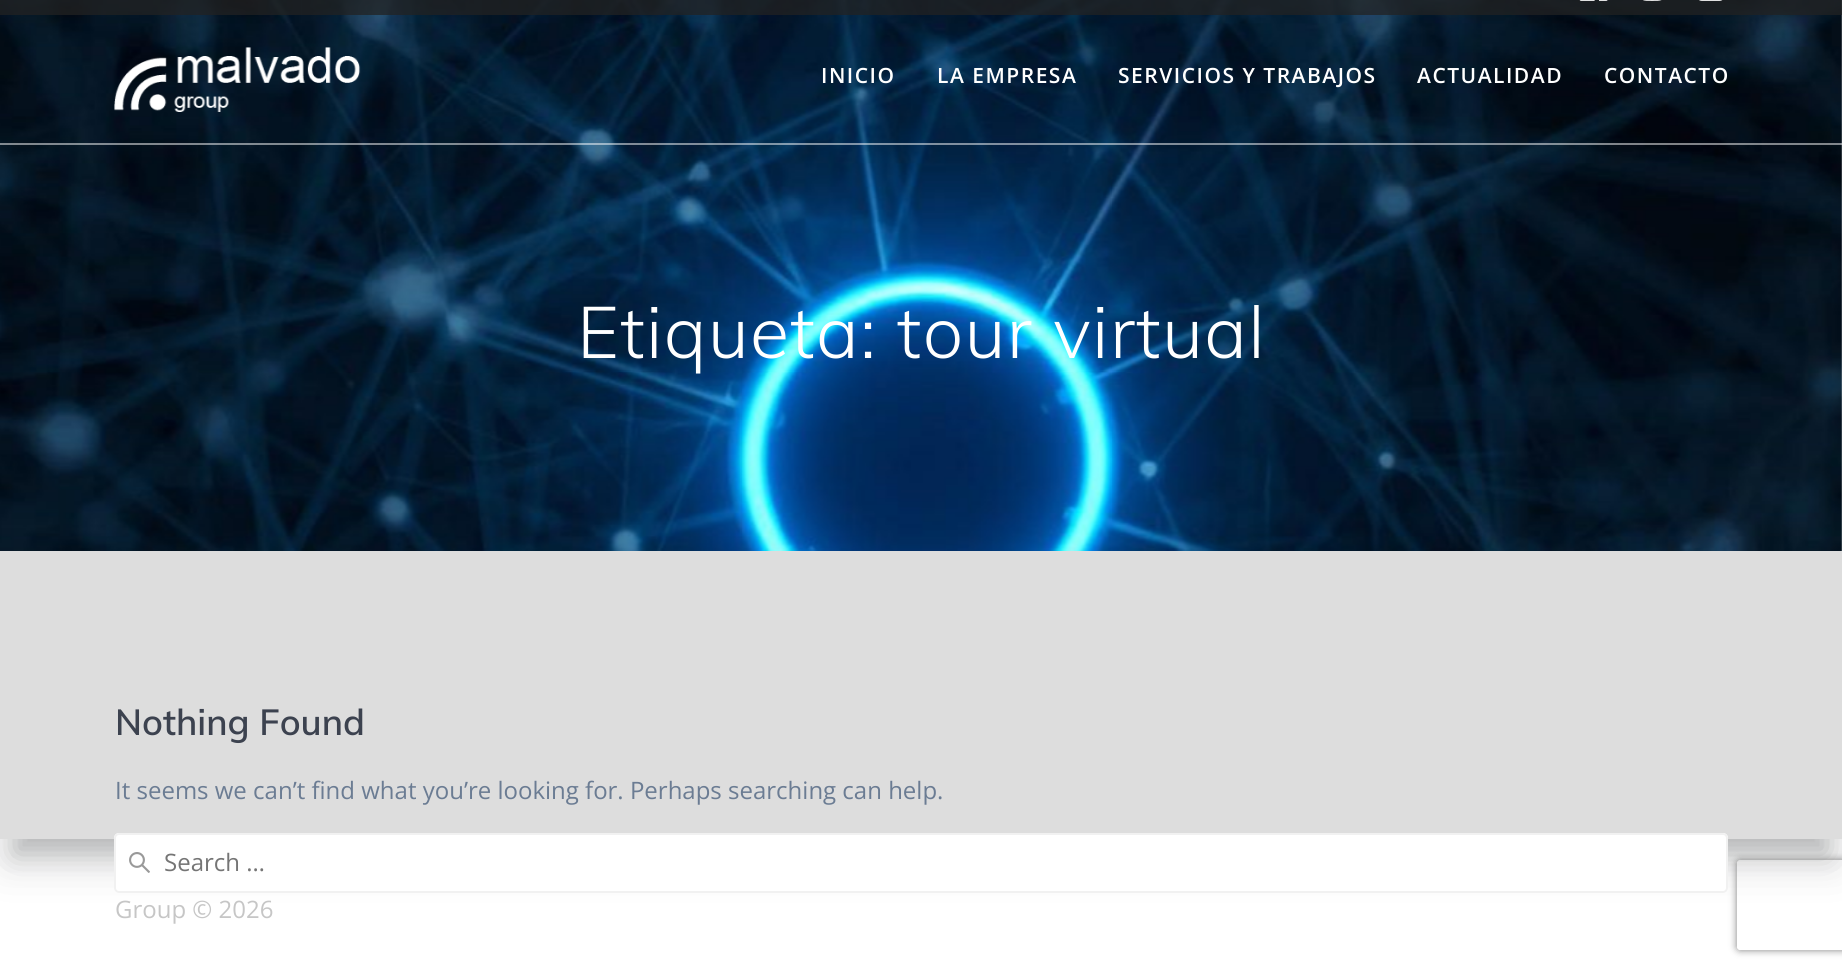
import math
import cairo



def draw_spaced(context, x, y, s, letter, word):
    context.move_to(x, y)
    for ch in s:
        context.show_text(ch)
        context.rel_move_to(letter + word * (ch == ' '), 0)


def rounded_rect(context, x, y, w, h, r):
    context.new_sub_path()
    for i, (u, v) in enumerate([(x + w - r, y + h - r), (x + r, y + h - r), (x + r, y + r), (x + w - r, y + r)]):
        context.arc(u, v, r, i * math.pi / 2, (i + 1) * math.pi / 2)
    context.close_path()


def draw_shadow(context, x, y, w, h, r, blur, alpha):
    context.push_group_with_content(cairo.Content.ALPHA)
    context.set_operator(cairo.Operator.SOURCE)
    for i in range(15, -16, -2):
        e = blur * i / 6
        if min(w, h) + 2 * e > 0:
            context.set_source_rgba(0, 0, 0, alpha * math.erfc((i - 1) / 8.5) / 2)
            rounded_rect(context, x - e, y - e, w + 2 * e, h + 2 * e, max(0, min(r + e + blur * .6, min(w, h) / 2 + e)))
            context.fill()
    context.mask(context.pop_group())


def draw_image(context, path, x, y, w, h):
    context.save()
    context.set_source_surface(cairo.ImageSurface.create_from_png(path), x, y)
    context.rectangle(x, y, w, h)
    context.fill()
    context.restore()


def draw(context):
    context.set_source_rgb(1, 1, 1)
    context.paint()
    draw_image(context, "images/5.png", 0, 0, 1842, 551)
    context.set_source_rgba(34 / 255, 34 / 255, 34 / 255, 0.75)
    context.rectangle(0, 0, 1842, 15)
    context.fill()
    draw_image(context, "images/1.png", 1579, 0, 29, 1)
    draw_image(context, "images/2.png", 1643, 0, 19, 1)
    draw_image(context, "images/3.png", 1699, 0, 24, 1)
    context.set_source_rgba(1, 1, 1, 0.5)
    context.rectangle(0, 143, 1842, 2)
    context.fill()
    draw_image(context, "images/4.png", 114, 47, 247, 65)
    context.set_source_rgb(0, 0, 0)
    draw_shadow(context, 0, 581, 1842, 288, 0, 22.5, 0.08)
    context.set_source_rgb(49 / 255, 52 / 255, 57 / 255)
    draw_shadow(context, 15, 596, 1812, 258, 0, 15, 0.3)
    context.set_source_rgb(221 / 255, 221 / 255, 221 / 255)
    context.rectangle(0, 551, 1842, 288)
    context.fill()
    context.save()
    context.set_fill_rule(cairo.FillRule.EVEN_ODD)
    context.new_path()
    context.move_to(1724, 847)
    context.line_to(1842, 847)
    context.line_to(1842, 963)
    context.line_to(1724, 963)
    context.close_path()
    context.move_to(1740, 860)
    context.line_to(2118, 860)
    context.curve_to(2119.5, 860, 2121, 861.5, 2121, 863)
    context.line_to(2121, 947)
    context.curve_to(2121, 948.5, 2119.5, 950, 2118, 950)
    context.line_to(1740, 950)
    context.curve_to(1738.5, 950, 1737, 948.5, 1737, 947)
    context.line_to(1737, 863)
    context.curve_to(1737, 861.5, 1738.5, 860, 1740, 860)
    context.close_path()
    context.clip()
    context.set_source_rgb(128 / 255, 128 / 255, 128 / 255)
    draw_shadow(context, 1737, 860, 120, 90, 3, 4, 1)
    context.restore()
    context.set_source_rgb(1, 1, 1)
    rounded_rect(context, 114, 833, 1614, 60, 5)
    context.fill()
    draw_image(context, "images/6.png", 129, 852, 21, 21)
    rounded_rect(context, 115, 834, 1612, 58, 4)
    context.set_source_rgb(241 / 255, 241 / 255, 241 / 255)
    context.stroke()
    context.select_font_face("Open Sans SemiBold")
    context.set_font_size(21)
    context.set_source_rgb(1, 1, 1)
    draw_spaced(context, 821, 83, "INICIO", 1.5, 0)
    draw_spaced(context, 937, 83, "LA EMPRESA", 1.5, 0)
    draw_spaced(context, 1118, 83, "SERVICIOS Y TRABAJOS", 1.5, 0)
    draw_spaced(context, 1417, 83, "ACTUALIDAD", 1.5, 0)
    draw_spaced(context, 1604, 83, "CONTACTO", 1.5, 0)
    context.select_font_face("Muli Light")
    context.set_font_size(72)
    draw_spaced(context, 577, 358, "Etiqueta: tour virtual", 1.35, 0)
    context.select_font_face("Muli SemiBold")
    context.set_font_size(36)
    context.set_source_rgb(60 / 255, 66 / 255, 79 / 255)
    context.move_to(115, 735)
    context.show_text("Nothing Found")
    context.select_font_face("Open Sans")
    context.set_font_size(24)
    context.set_source_rgb(107 / 255, 124 / 255, 147 / 255)
    context.move_to(115, 799)
    context.show_text("It seems we can’t find what you’re looking for. Perhaps searching can help.")
    context.set_source_rgb(117 / 255, 117 / 255, 117 / 255)
    context.move_to(164, 871)
    context.show_text("Search …")
    context.set_source_rgb(198 / 255, 198 / 255, 198 / 255)
    context.move_to(115, 918)
    context.show_text("Group © 2026")


surface = cairo.ImageSurface(cairo.Format.RGB24, 1842, 970)
context = cairo.Context(surface)
options = cairo.FontOptions()
options.set_hint_metrics(cairo.HintMetrics.OFF)
options.set_hint_style(cairo.HintStyle.NONE)
context.set_font_options(options)
context.set_miter_limit(4)
draw(context)
surface.write_to_png("out.png")
